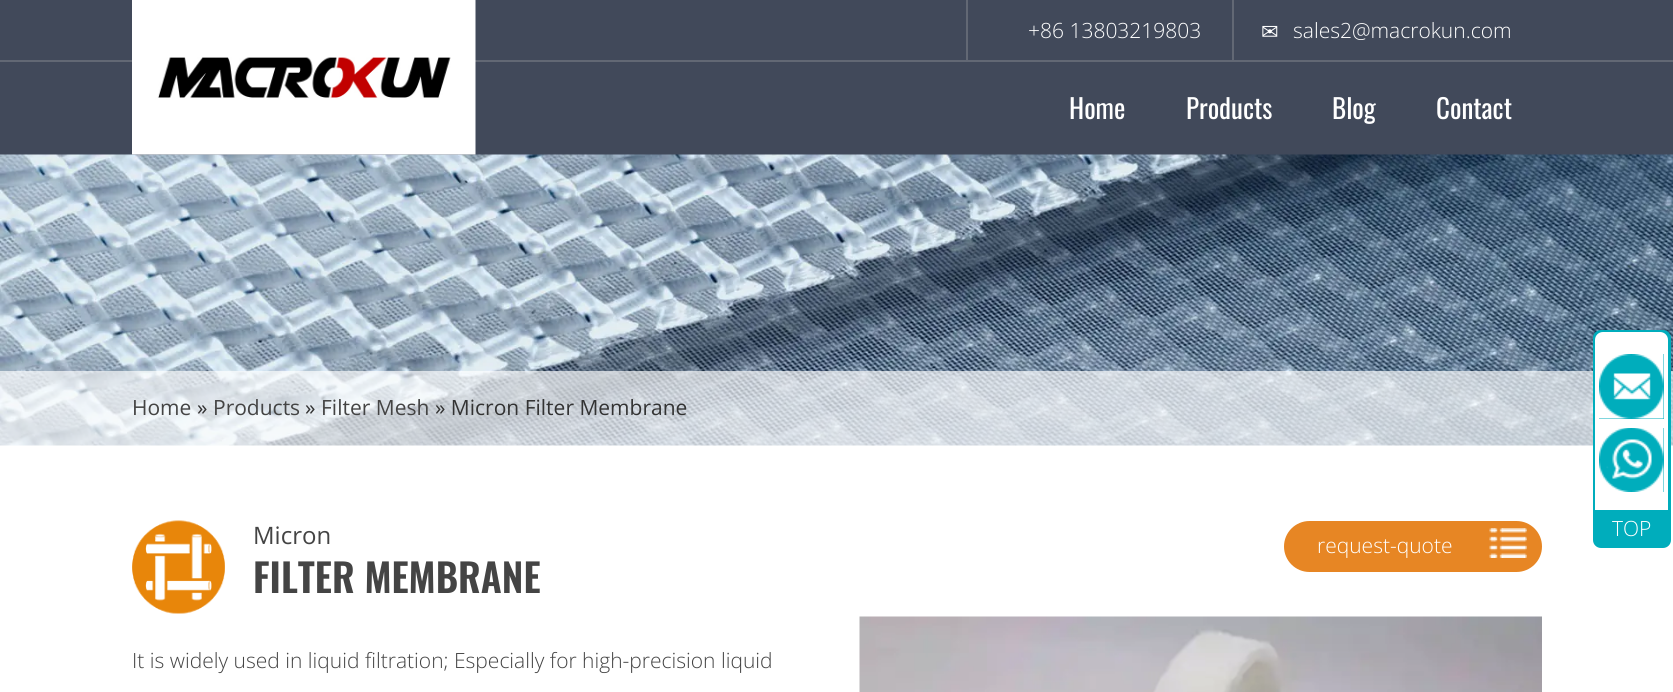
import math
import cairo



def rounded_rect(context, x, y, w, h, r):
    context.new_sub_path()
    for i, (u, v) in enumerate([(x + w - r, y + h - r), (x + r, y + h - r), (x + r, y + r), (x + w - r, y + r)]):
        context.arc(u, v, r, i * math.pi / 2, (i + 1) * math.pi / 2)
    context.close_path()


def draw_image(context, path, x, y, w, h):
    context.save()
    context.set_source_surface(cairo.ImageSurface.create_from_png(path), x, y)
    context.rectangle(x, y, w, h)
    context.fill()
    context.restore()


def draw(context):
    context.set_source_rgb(1, 1, 1)
    context.paint()
    context.set_source_rgb(65 / 255, 73 / 255, 90 / 255)
    context.rectangle(0, 0, 1673, 155)
    context.fill()
    context.set_source_rgb(98 / 255, 104 / 255, 116 / 255)
    context.rectangle(0, 60, 1673, 2)
    context.fill()
    draw_image(context, "images/2.png", 0, 154, 1673, 292)
    draw_image(context, "images/1.png", 132, 0, 344, 155)
    context.rectangle(1232, 0, 2, 60)
    context.fill()
    context.rectangle(966, 0, 2, 60)
    context.fill()
    context.set_source_rgba(1, 1, 1, 0.67)
    context.rectangle(0, 371, 1673, 75)
    context.fill()
    draw_image(context, "images/3.png", 132, 520, 93, 94)
    context.set_source_rgb(231 / 255, 134 / 255, 36 / 255)
    rounded_rect(context, 1284, 521, 258, 51, 25.5)
    context.fill()
    draw_image(context, "images/4.png", 1489, 528, 38, 30)
    draw_image(context, "images/5.png", 859, 616, 683, 76)
    context.set_source_rgb(0, 173 / 255, 188 / 255)
    rounded_rect(context, 1593, 330, 78, 218, 8)
    context.fill()
    context.set_source_rgb(1, 1, 1)
    context.new_path()
    context.move_to(1603, 332)
    context.line_to(1660, 332)
    context.curve_to(1664.5, 332, 1668, 335.5, 1668, 340)
    context.line_to(1668, 510)
    context.line_to(1595, 510)
    context.line_to(1595, 340)
    context.curve_to(1595, 335.5, 1598.5, 332, 1603, 332)
    context.close_path()
    context.fill()
    context.set_source_rgb(0, 173 / 255, 188 / 255)
    context.rectangle(1599, 354, 65, 138)
    context.fill()
    draw_image(context, "images/6.png", 1599, 354, 65, 65)
    context.set_source_rgb(1, 1, 1)
    context.rectangle(1599, 419, 65, 9)
    context.fill()
    draw_image(context, "images/7.png", 1599, 428, 65, 64)
    context.select_font_face("Open Sans Light")
    context.set_font_size(21)
    context.move_to(1028, 38)
    context.show_text("+86 13803219803")
    context.select_font_face("DejaVu Sans")
    context.move_to(1261, 39)
    context.show_text("✉")
    context.select_font_face("Open Sans Light")
    context.move_to(1293, 38)
    context.show_text("sales2@macrokun.com")
    context.select_font_face("Oswald")
    context.set_font_size(27)
    context.move_to(1069, 119)
    context.show_text("Home")
    context.move_to(1186, 119)
    context.show_text("Products")
    context.move_to(1332, 119)
    context.show_text("Blog")
    context.move_to(1436, 119)
    context.show_text("Contact")
    context.select_font_face("Open Sans")
    context.set_font_size(21)
    context.set_source_rgb(68 / 255, 68 / 255, 68 / 255)
    context.move_to(132, 415)
    context.show_text("Home")
    context.set_source_rgb(51 / 255, 51 / 255, 51 / 255)
    context.move_to(197, 415)
    context.show_text("»")
    context.set_source_rgb(68 / 255, 68 / 255, 68 / 255)
    context.move_to(213, 415)
    context.show_text("Products")
    context.set_source_rgb(51 / 255, 51 / 255, 51 / 255)
    context.move_to(305, 415)
    context.show_text("»")
    context.set_source_rgb(68 / 255, 68 / 255, 68 / 255)
    context.move_to(321, 415)
    context.show_text("Filter Mesh")
    context.set_source_rgb(51 / 255, 51 / 255, 51 / 255)
    context.move_to(435, 415)
    context.show_text("» Micron Filter Membrane")
    context.set_font_size(24)
    context.set_source_rgb(68 / 255, 68 / 255, 68 / 255)
    context.move_to(253, 544)
    context.show_text("Micron")
    context.select_font_face("Oswald SemiBold")
    context.set_font_size(39)
    context.move_to(253, 593)
    context.show_text("FILTER MEMBRANE")
    context.select_font_face("Open Sans Light")
    context.set_font_size(21)
    context.move_to(132, 668)
    context.show_text("It is widely used in liquid filtration; Especially for high-precision liquid")
    context.set_source_rgb(1, 1, 1)
    context.move_to(1317, 553)
    context.show_text("request-quote")
    context.move_to(1612, 536)
    context.show_text("TOP")


surface = cairo.ImageSurface(cairo.Format.RGB24, 1673, 692)
context = cairo.Context(surface)
options = cairo.FontOptions()
options.set_hint_metrics(cairo.HintMetrics.OFF)
options.set_hint_style(cairo.HintStyle.NONE)
context.set_font_options(options)
context.set_miter_limit(4)
draw(context)
surface.write_to_png("out.png")
